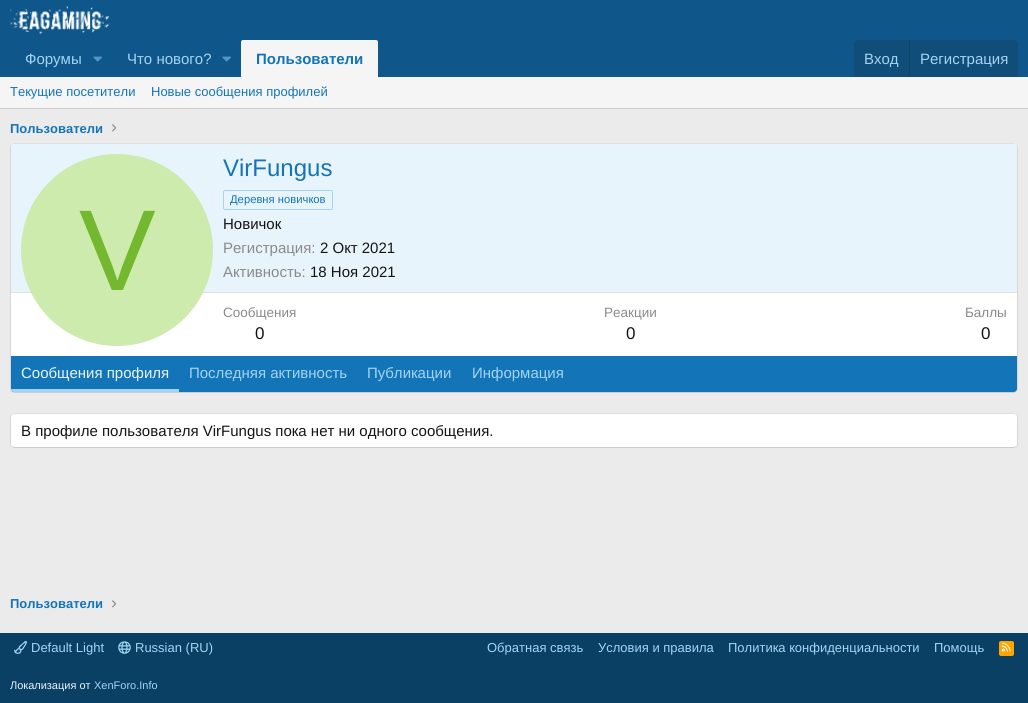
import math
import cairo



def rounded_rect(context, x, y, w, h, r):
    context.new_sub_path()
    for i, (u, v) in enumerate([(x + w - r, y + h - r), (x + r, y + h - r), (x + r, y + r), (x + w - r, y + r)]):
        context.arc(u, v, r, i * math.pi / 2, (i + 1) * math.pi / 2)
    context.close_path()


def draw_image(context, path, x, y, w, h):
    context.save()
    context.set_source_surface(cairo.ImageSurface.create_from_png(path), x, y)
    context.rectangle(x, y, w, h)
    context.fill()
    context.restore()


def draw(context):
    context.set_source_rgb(235 / 255, 235 / 255, 235 / 255)
    context.paint()
    context.set_source_rgb(15 / 255, 87 / 255, 138 / 255)
    context.rectangle(0, 0, 1028, 77)
    context.fill()
    draw_image(context, "images/1.png", 10, 6, 100, 28)
    draw_image(context, "images/2.png", 93, 56, 9, 6)
    draw_image(context, "images/2.png", 222, 56, 9, 6)
    context.set_source_rgb(245 / 255, 245 / 255, 245 / 255)
    context.new_path()
    context.move_to(243, 40)
    context.line_to(376, 40)
    context.curve_to(377, 40, 378, 41, 378, 42)
    context.line_to(378, 77)
    context.line_to(241, 77)
    context.line_to(241, 42)
    context.curve_to(241, 41, 242, 40, 243, 40)
    context.close_path()
    context.fill()
    context.set_source_rgb(16 / 255, 77 / 255, 120 / 255)
    context.new_path()
    context.move_to(858, 40)
    context.line_to(1014, 40)
    context.curve_to(1016, 40, 1018, 42, 1018, 44)
    context.line_to(1018, 77)
    context.line_to(854, 77)
    context.line_to(854, 44)
    context.curve_to(854, 42, 856, 40, 858, 40)
    context.close_path()
    context.fill()
    context.set_source_rgb(17 / 255, 68 / 255, 105 / 255)
    context.rectangle(909, 40, 1, 37)
    context.fill()
    context.set_source_rgb(245 / 255, 245 / 255, 245 / 255)
    context.rectangle(0, 77, 1028, 31)
    context.fill()
    context.set_source_rgb(204 / 255, 204 / 255, 204 / 255)
    context.rectangle(0, 108, 1028, 1)
    context.fill()
    draw_image(context, "images/3.png", 112, 124, 4, 8)
    context.set_source_rgb(1, 1, 1)
    rounded_rect(context, 10, 143, 1008, 250, 4)
    context.fill()
    context.new_path()
    context.move_to(11.5, 144.5)
    context.line_to(14, 143.5)
    context.line_to(1014, 143.5)
    context.line_to(1016.5, 144.5)
    context.set_source_rgb(224 / 255, 224 / 255, 224 / 255)
    context.set_line_width(1)
    context.stroke()
    context.new_path()
    context.move_to(1016.5, 144.5)
    context.curve_to(1017, 145, 1017.5, 146, 1017.5, 147)
    context.line_to(1017.5, 389)
    context.curve_to(1017.5, 390, 1017, 391, 1016.5, 391.5)
    context.set_source_rgb(214 / 255, 214 / 255, 214 / 255)
    context.stroke()
    context.new_path()
    context.move_to(1016.5, 391.5)
    context.line_to(1014, 392.5)
    context.line_to(14, 392.5)
    context.line_to(11.5, 391.5)
    context.set_source_rgb(204 / 255, 204 / 255, 204 / 255)
    context.stroke()
    context.new_path()
    context.move_to(11.5, 391.5)
    context.curve_to(11, 391, 10.5, 390, 10.5, 389)
    context.line_to(10.5, 147)
    context.curve_to(10.5, 146, 11, 145, 11.5, 144.5)
    context.set_source_rgb(214 / 255, 214 / 255, 214 / 255)
    context.stroke()
    context.set_source_rgb(232 / 255, 244 / 255, 252 / 255)
    context.new_path()
    context.move_to(14, 144)
    context.line_to(1014, 144)
    context.curve_to(1015.5, 144, 1017, 145.5, 1017, 147)
    context.line_to(1017, 293)
    context.line_to(11, 293)
    context.line_to(11, 147)
    context.curve_to(11, 145.5, 12.5, 144, 14, 144)
    context.close_path()
    context.fill()
    context.set_source_rgb(224 / 255, 224 / 255, 224 / 255)
    context.rectangle(11, 292, 1006, 1)
    context.fill()
    context.set_source_rgb(204 / 255, 235 / 255, 173 / 255)
    context.arc(117, 250, 96, 0, 2 * math.pi)
    context.fill()
    rounded_rect(context, 223.5, 190.5, 109, 19, 1.5)
    context.set_source_rgb(163 / 255, 212 / 255, 245 / 255)
    context.stroke()
    context.set_source_rgb(20 / 255, 116 / 255, 184 / 255)
    context.new_path()
    context.move_to(11, 356)
    context.line_to(1017, 356)
    context.line_to(1017, 389)
    context.curve_to(1017, 390.5, 1015.5, 392, 1014, 392)
    context.line_to(14, 392)
    context.curve_to(12.5, 392, 11, 390.5, 11, 389)
    context.close_path()
    context.fill()
    context.set_source_rgb(163 / 255, 212 / 255, 245 / 255)
    context.new_path()
    context.move_to(11, 389)
    context.line_to(179, 389)
    context.line_to(179, 392)
    context.line_to(14, 392)
    context.curve_to(12.5, 392, 11, 390.5, 11, 389)
    context.close_path()
    context.fill()
    context.set_source_rgb(1, 1, 1)
    rounded_rect(context, 10, 413, 1008, 35, 4)
    context.fill()
    context.new_path()
    context.move_to(11.5, 414.5)
    context.line_to(14, 413.5)
    context.line_to(1014, 413.5)
    context.line_to(1016.5, 414.5)
    context.set_source_rgb(224 / 255, 224 / 255, 224 / 255)
    context.stroke()
    context.new_path()
    context.move_to(1016.5, 414.5)
    context.curve_to(1017, 415, 1017.5, 416, 1017.5, 417)
    context.line_to(1017.5, 444)
    context.curve_to(1017.5, 445, 1017, 446, 1016.5, 446.5)
    context.set_source_rgb(214 / 255, 214 / 255, 214 / 255)
    context.stroke()
    context.new_path()
    context.move_to(1016.5, 446.5)
    context.line_to(1014, 447.5)
    context.line_to(14, 447.5)
    context.line_to(11.5, 446.5)
    context.set_source_rgb(204 / 255, 204 / 255, 204 / 255)
    context.stroke()
    context.new_path()
    context.move_to(11.5, 446.5)
    context.curve_to(11, 446, 10.5, 445, 10.5, 444)
    context.line_to(10.5, 417)
    context.curve_to(10.5, 416, 11, 415, 11.5, 414.5)
    context.set_source_rgb(214 / 255, 214 / 255, 214 / 255)
    context.stroke()
    draw_image(context, "images/3.png", 112, 600, 4, 8)
    context.set_source_rgb(11 / 255, 64 / 255, 101 / 255)
    context.rectangle(0, 633, 1028, 70)
    context.fill()
    draw_image(context, "images/4.png", 14, 641, 13, 13)
    draw_image(context, "images/5.png", 118, 641, 13, 13)
    context.set_source_rgb(1, 165 / 255, 0)
    rounded_rect(context, 999, 641, 15, 15, 2)
    context.fill()
    draw_image(context, "images/6.png", 1001, 642, 10, 10)
    context.select_font_face("Liberation Sans")
    context.set_font_size(15)
    context.set_source_rgb(163 / 255, 212 / 255, 245 / 255)
    context.move_to(25, 64)
    context.show_text("Форумы")
    context.move_to(127, 64)
    context.show_text("Что нового?")
    context.select_font_face("Liberation Sans", cairo.FontSlant.NORMAL, cairo.FontWeight.BOLD)
    context.set_source_rgb(20 / 255, 116 / 255, 184 / 255)
    context.move_to(256, 64)
    context.show_text("Пользователи")
    context.select_font_face("Liberation Sans")
    context.set_source_rgb(163 / 255, 212 / 255, 245 / 255)
    context.move_to(864, 64)
    context.show_text("Вход")
    context.move_to(920, 64)
    context.show_text("Регистрация")
    context.set_font_size(13)
    context.set_source_rgb(20 / 255, 116 / 255, 184 / 255)
    context.move_to(10, 96)
    context.show_text("Текущие посетители")
    context.move_to(151, 96)
    context.show_text("Новые сообщения профилей")
    context.select_font_face("Liberation Sans", cairo.FontSlant.NORMAL, cairo.FontWeight.BOLD)
    context.move_to(10, 133)
    context.show_text("Пользователи")
    context.select_font_face("Liberation Sans")
    context.set_font_size(115)
    context.set_source_rgb(115 / 255, 184 / 255, 46 / 255)
    context.move_to(79, 290)
    context.show_text("V")
    context.set_font_size(24)
    context.set_source_rgb(20 / 255, 116 / 255, 184 / 255)
    context.move_to(223, 176)
    context.show_text("VirFungus")
    context.set_font_size(11.25)
    context.move_to(230, 203)
    context.show_text("Деревня новичков")
    context.set_font_size(15)
    context.set_source_rgb(20 / 255, 20 / 255, 20 / 255)
    context.move_to(223, 229)
    context.show_text("Новичок")
    context.set_source_rgb(138 / 255, 138 / 255, 138 / 255)
    context.move_to(223, 253)
    context.show_text("Регистрация:")
    context.set_source_rgb(20 / 255, 20 / 255, 20 / 255)
    context.move_to(320, 253)
    context.show_text("2 Окт 2021")
    context.set_source_rgb(138 / 255, 138 / 255, 138 / 255)
    context.move_to(223, 277)
    context.show_text("Активность:")
    context.set_source_rgb(20 / 255, 20 / 255, 20 / 255)
    context.move_to(310, 277)
    context.show_text("18 Ноя 2021")
    context.set_font_size(13.5)
    context.set_source_rgb(138 / 255, 138 / 255, 138 / 255)
    context.move_to(223, 317)
    context.show_text("Сообщения")
    context.set_font_size(17)
    context.set_source_rgb(20 / 255, 20 / 255, 20 / 255)
    context.move_to(255, 339)
    context.show_text("0")
    context.set_font_size(13.5)
    context.set_source_rgb(138 / 255, 138 / 255, 138 / 255)
    context.move_to(604, 317)
    context.show_text("Реакции")
    context.set_font_size(17)
    context.set_source_rgb(20 / 255, 20 / 255, 20 / 255)
    context.move_to(626, 339)
    context.show_text("0")
    context.set_font_size(13.5)
    context.set_source_rgb(138 / 255, 138 / 255, 138 / 255)
    context.move_to(965, 317)
    context.show_text("Баллы")
    context.set_font_size(17)
    context.set_source_rgb(20 / 255, 20 / 255, 20 / 255)
    context.move_to(981, 339)
    context.show_text("0")
    context.set_font_size(15)
    context.set_source_rgb(232 / 255, 244 / 255, 252 / 255)
    context.move_to(21, 378)
    context.show_text("Сообщения профиля")
    context.set_source_rgb(163 / 255, 212 / 255, 245 / 255)
    context.move_to(189, 378)
    context.show_text("Последняя активность")
    context.move_to(367, 378)
    context.show_text("Публикации")
    context.move_to(472, 378)
    context.show_text("Информация")
    context.set_source_rgb(20 / 255, 20 / 255, 20 / 255)
    context.move_to(21, 436)
    context.show_text("В профиле пользователя VirFungus пока нет ни одного сообщения.")
    context.select_font_face("Liberation Sans", cairo.FontSlant.NORMAL, cairo.FontWeight.BOLD)
    context.set_font_size(13)
    context.set_source_rgb(20 / 255, 116 / 255, 184 / 255)
    context.move_to(10, 608)
    context.show_text("Пользователи")
    context.select_font_face("Liberation Sans")
    context.set_source_rgb(163 / 255, 212 / 255, 245 / 255)
    context.move_to(31, 652)
    context.show_text("Default Light")
    context.move_to(135, 652)
    context.show_text("Russian (RU)")
    context.move_to(487, 652)
    context.show_text("Обратная связь")
    context.move_to(598, 652)
    context.show_text("Условия и правила")
    context.move_to(728, 652)
    context.show_text("Политика конфиденциальности")
    context.move_to(934, 652)
    context.show_text("Помощь")
    context.set_font_size(11)
    context.set_source_rgb(232 / 255, 244 / 255, 252 / 255)
    context.move_to(10, 689)
    context.show_text("Локализация от")
    context.set_source_rgb(163 / 255, 212 / 255, 245 / 255)
    context.move_to(94, 689)
    context.show_text("XenForo.Info")


surface = cairo.ImageSurface(cairo.Format.RGB24, 1028, 703)
context = cairo.Context(surface)
options = cairo.FontOptions()
options.set_hint_metrics(cairo.HintMetrics.OFF)
options.set_hint_style(cairo.HintStyle.NONE)
context.set_font_options(options)
context.set_miter_limit(4)
draw(context)
surface.write_to_png("out.png")
